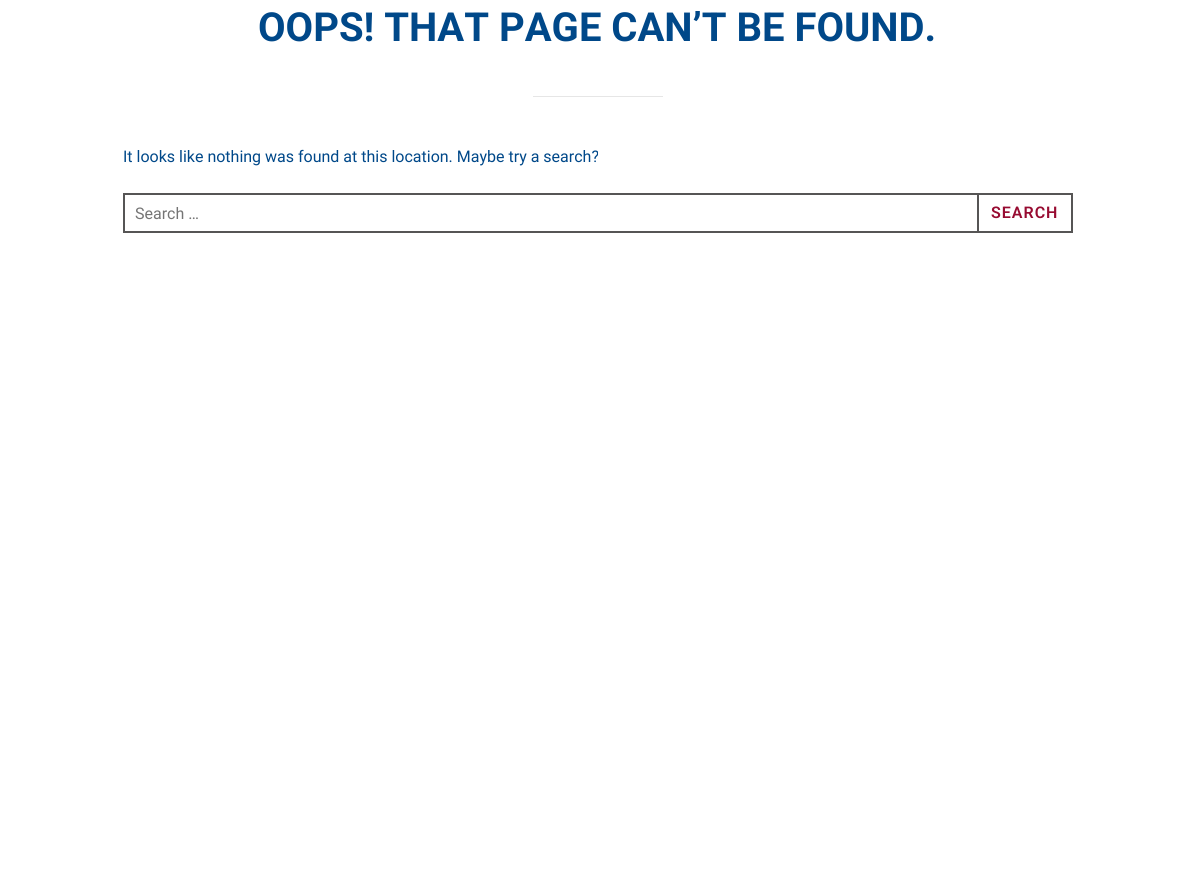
import math
import cairo



def draw_spaced(context, x, y, s, letter, word):
    context.move_to(x, y)
    for ch in s:
        context.show_text(ch)
        context.rel_move_to(letter + word * (ch == ' '), 0)


def draw(context):
    context.set_source_rgb(1, 1, 1)
    context.paint()
    context.set_source_rgb(230 / 255, 230 / 255, 230 / 255)
    context.rectangle(533, 96, 130, 1)
    context.fill()
    context.rectangle(124, 194, 948, 38)
    context.set_source_rgb(86 / 255, 85 / 255, 85 / 255)
    context.stroke()
    context.rectangle(978, 194, 94, 38)
    context.stroke()
    context.select_font_face("Roboto", cairo.FontSlant.NORMAL, cairo.FontWeight.BOLD)
    context.set_font_size(40)
    context.set_source_rgb(0, 72 / 255, 137 / 255)
    context.move_to(258, 41)
    context.show_text("OOPS! THAT PAGE CAN’T BE FOUND.")
    context.select_font_face("Roboto")
    context.set_font_size(16)
    context.move_to(123, 162)
    context.show_text("It looks like nothing was found at this location. Maybe try a search?")
    context.set_source_rgb(117 / 255, 117 / 255, 117 / 255)
    context.move_to(135, 219)
    context.show_text("Search …")
    context.select_font_face("Roboto SemiBold")
    context.set_source_rgb(151 / 255, 11 / 255, 49 / 255)
    draw_spaced(context, 991, 218, "SEARCH", 1, 0)


surface = cairo.ImageSurface(cairo.Format.RGB24, 1195, 889)
context = cairo.Context(surface)
options = cairo.FontOptions()
options.set_hint_metrics(cairo.HintMetrics.OFF)
options.set_hint_style(cairo.HintStyle.NONE)
context.set_font_options(options)
context.set_miter_limit(4)
draw(context)
surface.write_to_png("out.png")
